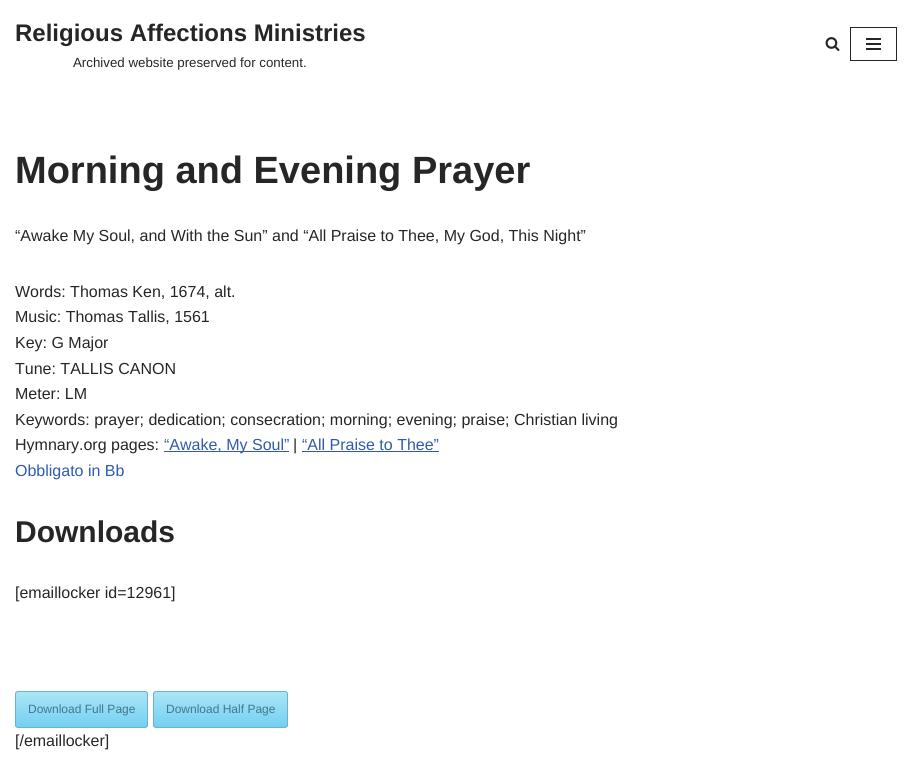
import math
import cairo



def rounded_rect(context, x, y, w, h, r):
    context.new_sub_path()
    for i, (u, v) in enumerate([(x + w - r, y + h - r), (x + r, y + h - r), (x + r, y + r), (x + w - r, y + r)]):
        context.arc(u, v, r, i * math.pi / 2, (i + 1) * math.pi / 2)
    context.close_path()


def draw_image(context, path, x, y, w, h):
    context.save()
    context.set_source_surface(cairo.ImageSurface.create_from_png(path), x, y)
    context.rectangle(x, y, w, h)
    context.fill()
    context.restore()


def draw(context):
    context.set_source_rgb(1, 1, 1)
    context.paint()
    draw_image(context, "images/1.png", 825, 37, 15, 14)
    context.rectangle(850.5, 27.5, 46, 33)
    context.set_source_rgb(39 / 255, 38 / 255, 38 / 255)
    context.set_line_width(1)
    context.stroke()
    context.rectangle(866, 38, 15, 2)
    context.fill()
    context.rectangle(866, 43, 15, 2)
    context.fill()
    context.rectangle(866, 48, 15, 2)
    context.fill()
    context.set_source_rgb(47 / 255, 90 / 255, 174 / 255)
    context.rectangle(164, 451, 125, 1)
    context.fill()
    context.rectangle(302, 451, 137, 1)
    context.fill()
    context.save()
    rounded_rect(context, 15, 691, 133, 37, 3)
    context.clip()
    gradient = cairo.LinearGradient(82, 692, 82, 727)
    gradient.add_color_stop_rgba(0, 170 / 255, 229 / 255, 247 / 255, 1)
    gradient.add_color_stop_rgba(1, 115 / 255, 208 / 255, 241 / 255, 1)
    context.set_source(gradient)
    context.rectangle(15, 692, 133, 35)
    context.fill()
    context.restore()
    rounded_rect(context, 15.5, 691.5, 132, 36, 2.5)
    context.set_source_rgb(111 / 255, 177 / 255, 199 / 255)
    context.stroke()
    context.save()
    rounded_rect(context, 153, 691, 135, 37, 3)
    context.clip()
    gradient = cairo.LinearGradient(221, 692, 221, 727)
    gradient.add_color_stop_rgba(0, 170 / 255, 229 / 255, 247 / 255, 1)
    gradient.add_color_stop_rgba(1, 115 / 255, 208 / 255, 241 / 255, 1)
    context.set_source(gradient)
    context.rectangle(153, 692, 135, 35)
    context.fill()
    context.restore()
    rounded_rect(context, 153.5, 691.5, 134, 36, 2.5)
    context.stroke()
    context.select_font_face("Liberation Sans", cairo.FontSlant.NORMAL, cairo.FontWeight.BOLD)
    context.set_font_size(24)
    context.set_source_rgb(39 / 255, 38 / 255, 38 / 255)
    context.move_to(15, 41)
    context.show_text("Religious Affections Ministries")
    context.select_font_face("Liberation Sans")
    context.set_font_size(13.3)
    context.move_to(73, 67)
    context.show_text("Archived website preserved for content.")
    context.select_font_face("Liberation Sans", cairo.FontSlant.NORMAL, cairo.FontWeight.BOLD)
    context.set_font_size(38)
    context.move_to(15, 183)
    context.show_text("Morning and Evening Prayer")
    context.select_font_face("Liberation Sans")
    context.set_font_size(16)
    context.move_to(15, 241)
    context.show_text("“Awake My Soul, and With the Sun” and “All Praise to Thee, My God, This Night”")
    context.move_to(15, 297)
    context.show_text("Words: Thomas Ken, 1674, alt.")
    context.move_to(15, 322)
    context.show_text("Music: Thomas Tallis, 1561")
    context.move_to(15, 348)
    context.show_text("Key: G Major")
    context.move_to(15, 374)
    context.show_text("Tune: TALLIS CANON")
    context.move_to(15, 399)
    context.show_text("Meter: LM")
    context.move_to(15, 425)
    context.show_text("Keywords: prayer; dedication; consecration; morning; evening; praise; Christian living")
    context.move_to(15, 450)
    context.show_text("Hymnary.org pages:")
    context.set_source_rgb(47 / 255, 90 / 255, 174 / 255)
    context.move_to(164, 450)
    context.show_text("“Awake, My Soul”")
    context.set_source_rgb(39 / 255, 38 / 255, 38 / 255)
    context.move_to(293, 450)
    context.show_text("|")
    context.set_source_rgb(47 / 255, 90 / 255, 174 / 255)
    context.move_to(302, 450)
    context.show_text("“All Praise to Thee”")
    context.move_to(15, 476)
    context.show_text("Obbligato in Bb")
    context.select_font_face("Liberation Sans", cairo.FontSlant.NORMAL, cairo.FontWeight.BOLD)
    context.set_font_size(30)
    context.set_source_rgb(39 / 255, 38 / 255, 38 / 255)
    context.move_to(15, 542)
    context.show_text("Downloads")
    context.select_font_face("Liberation Sans")
    context.set_font_size(16)
    context.move_to(15, 598)
    context.show_text("[emaillocker id=12961]")
    context.set_font_size(12)
    context.set_source_rgb(65 / 255, 120 / 255, 140 / 255)
    context.move_to(28, 713)
    context.show_text("Download Full Page")
    context.move_to(166, 713)
    context.show_text("Download Half Page")
    context.set_font_size(16)
    context.set_source_rgb(39 / 255, 38 / 255, 38 / 255)
    context.move_to(15, 746)
    context.show_text("[/emaillocker]")


surface = cairo.ImageSurface(cairo.Format.RGB24, 912, 773)
context = cairo.Context(surface)
options = cairo.FontOptions()
options.set_hint_metrics(cairo.HintMetrics.OFF)
options.set_hint_style(cairo.HintStyle.NONE)
context.set_font_options(options)
context.set_miter_limit(4)
draw(context)
surface.write_to_png("out.png")
